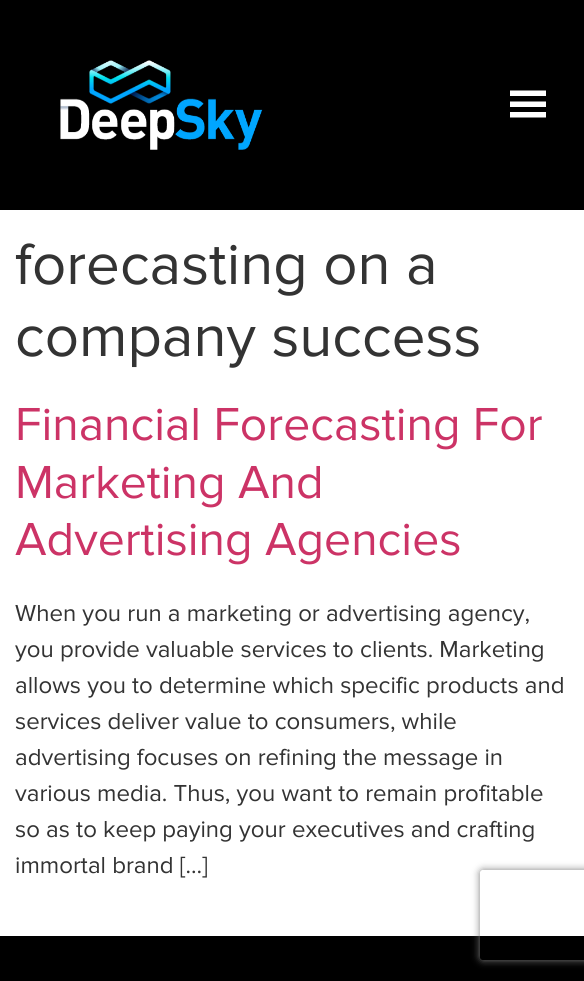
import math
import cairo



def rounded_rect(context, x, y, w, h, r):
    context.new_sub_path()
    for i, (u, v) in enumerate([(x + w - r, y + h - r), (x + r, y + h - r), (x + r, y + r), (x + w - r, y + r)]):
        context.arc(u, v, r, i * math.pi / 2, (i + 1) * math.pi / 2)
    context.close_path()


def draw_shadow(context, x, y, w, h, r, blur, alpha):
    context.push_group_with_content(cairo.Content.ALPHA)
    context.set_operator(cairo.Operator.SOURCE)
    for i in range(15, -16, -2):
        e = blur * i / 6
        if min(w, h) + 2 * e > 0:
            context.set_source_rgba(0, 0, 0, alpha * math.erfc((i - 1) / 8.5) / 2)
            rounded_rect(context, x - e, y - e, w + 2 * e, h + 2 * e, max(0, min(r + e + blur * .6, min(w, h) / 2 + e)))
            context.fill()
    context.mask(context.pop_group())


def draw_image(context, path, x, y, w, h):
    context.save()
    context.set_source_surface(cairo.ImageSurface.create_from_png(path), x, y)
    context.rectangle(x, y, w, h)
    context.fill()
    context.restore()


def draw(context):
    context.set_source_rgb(1, 1, 1)
    context.paint()
    context.set_source_rgb(0, 0, 0)
    context.rectangle(0, 0, 584, 210)
    context.fill()
    draw_image(context, "images/1.png", 60, 60, 203, 90)
    context.set_source_rgb(1, 1, 1)
    context.new_path()
    context.move_to(546, 96)
    context.line_to(546, 90.5)
    context.line_to(510, 90.5)
    context.line_to(510, 96)
    context.close_path()
    context.move_to(546, 107)
    context.line_to(546, 101.5)
    context.line_to(510, 101.5)
    context.line_to(510, 107)
    context.close_path()
    context.move_to(546, 117.5)
    context.line_to(546, 112)
    context.line_to(510, 112)
    context.line_to(510, 117.5)
    context.close_path()
    context.fill()
    context.set_source_rgb(0, 0, 0)
    context.rectangle(0, 936, 584, 45)
    context.fill()
    context.save()
    context.set_fill_rule(cairo.FillRule.EVEN_ODD)
    context.new_path()
    context.move_to(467, 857)
    context.line_to(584, 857)
    context.line_to(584, 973)
    context.line_to(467, 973)
    context.close_path()
    context.move_to(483, 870)
    context.line_to(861, 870)
    context.curve_to(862.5, 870, 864, 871.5, 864, 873)
    context.line_to(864, 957)
    context.curve_to(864, 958.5, 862.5, 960, 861, 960)
    context.line_to(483, 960)
    context.curve_to(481.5, 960, 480, 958.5, 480, 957)
    context.line_to(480, 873)
    context.curve_to(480, 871.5, 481.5, 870, 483, 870)
    context.close_path()
    context.clip()
    context.set_source_rgb(128 / 255, 128 / 255, 128 / 255)
    draw_shadow(context, 480, 870, 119, 90, 3, 4, 1)
    context.restore()
    context.select_font_face("Proxima Nova")
    context.set_font_size(60)
    context.set_source_rgb(51 / 255, 51 / 255, 51 / 255)
    context.move_to(15, 284)
    context.show_text("forecasting on a")
    context.move_to(15, 356)
    context.show_text("company success")
    context.set_font_size(48)
    context.set_source_rgb(204 / 255, 51 / 255, 102 / 255)
    context.move_to(15, 440)
    context.show_text("Financial Forecasting For")
    context.move_to(15, 498)
    context.show_text("Marketing And")
    context.move_to(15, 555)
    context.show_text("Advertising Agencies")
    context.set_font_size(24)
    context.set_source_rgb(51 / 255, 51 / 255, 51 / 255)
    context.move_to(15, 621)
    context.show_text("When you run a marketing or advertising agency,")
    context.move_to(15, 657)
    context.show_text("you provide valuable services to clients. Marketing")
    context.move_to(15, 693)
    context.show_text("allows you to determine which specific products and")
    context.move_to(15, 729)
    context.show_text("services deliver value to consumers, while")
    context.move_to(15, 765)
    context.show_text("advertising focuses on refining the message in")
    context.move_to(15, 801)
    context.show_text("various media. Thus, you want to remain profitable")
    context.move_to(15, 837)
    context.show_text("so as to keep paying your executives and crafting")
    context.move_to(15, 873)
    context.show_text("immortal brand […]")


surface = cairo.ImageSurface(cairo.Format.RGB24, 584, 981)
context = cairo.Context(surface)
options = cairo.FontOptions()
options.set_hint_metrics(cairo.HintMetrics.OFF)
options.set_hint_style(cairo.HintStyle.NONE)
context.set_font_options(options)
context.set_miter_limit(4)
draw(context)
surface.write_to_png("out.png")
